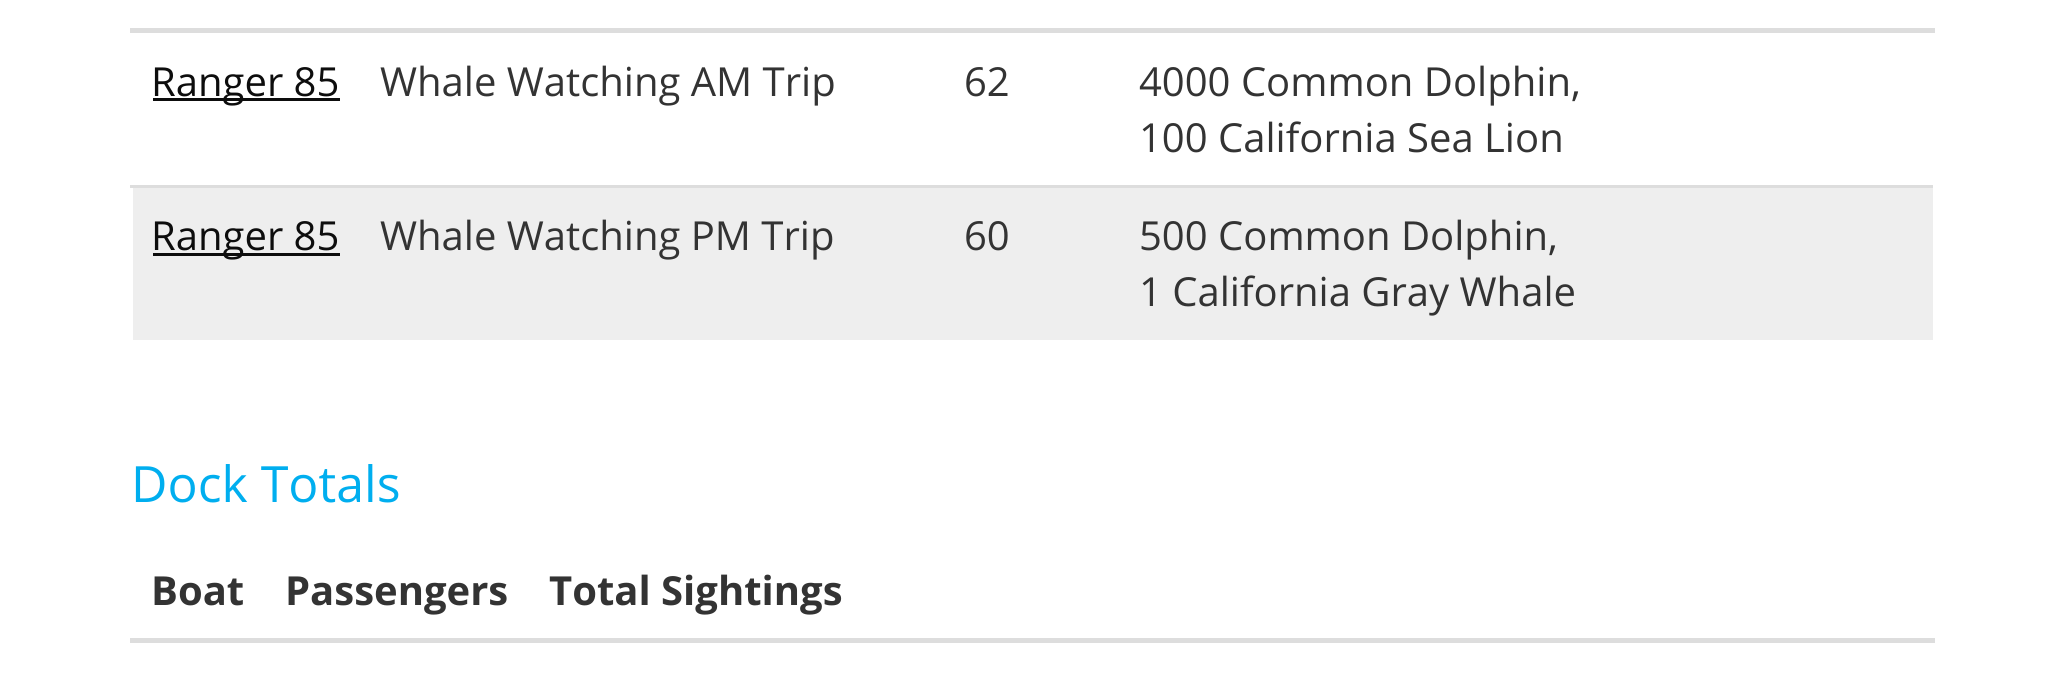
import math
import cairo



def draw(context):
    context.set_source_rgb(1, 1, 1)
    context.paint()
    context.set_source_rgb(221 / 255, 221 / 255, 221 / 255)
    context.rectangle(130, 28, 1805, 5)
    context.fill()
    context.set_source_rgb(13 / 255, 13 / 255, 13 / 255)
    context.rectangle(153, 98, 187, 3)
    context.fill()
    context.set_source_rgb(238 / 255, 238 / 255, 238 / 255)
    context.rectangle(133, 188, 1800, 152)
    context.fill()
    context.set_source_rgb(13 / 255, 13 / 255, 13 / 255)
    context.rectangle(153, 253, 187, 3)
    context.fill()
    context.set_source_rgb(221 / 255, 221 / 255, 221 / 255)
    context.rectangle(130, 185, 1803, 3)
    context.fill()
    context.rectangle(130, 638, 1805, 5)
    context.fill()
    context.select_font_face("Open Sans")
    context.set_font_size(40)
    context.set_source_rgb(13 / 255, 13 / 255, 13 / 255)
    context.move_to(151, 96)
    context.show_text("Ranger 85")
    context.set_source_rgb(51 / 255, 51 / 255, 51 / 255)
    context.move_to(380, 96)
    context.show_text("Whale Watching AM Trip")
    context.move_to(964, 96)
    context.show_text("62")
    context.move_to(1139, 96)
    context.show_text("4000 Common Dolphin,")
    context.move_to(1139, 152)
    context.show_text("100 California Sea Lion")
    context.set_source_rgb(13 / 255, 13 / 255, 13 / 255)
    context.move_to(151, 250)
    context.show_text("Ranger 85")
    context.set_source_rgb(51 / 255, 51 / 255, 51 / 255)
    context.move_to(380, 250)
    context.show_text("Whale Watching PM Trip")
    context.move_to(964, 250)
    context.show_text("60")
    context.move_to(1139, 250)
    context.show_text("500 Common Dolphin,")
    context.move_to(1139, 306)
    context.show_text("1 California Gray Whale")
    context.set_font_size(50)
    context.set_source_rgb(0, 174 / 255, 239 / 255)
    context.move_to(131, 502)
    context.show_text("Dock Totals")
    context.select_font_face("Open Sans", cairo.FontSlant.NORMAL, cairo.FontWeight.BOLD)
    context.set_font_size(40)
    context.set_source_rgb(51 / 255, 51 / 255, 51 / 255)
    context.move_to(151, 605)
    context.show_text("Boat")
    context.move_to(285, 605)
    context.show_text("Passengers")
    context.move_to(549, 605)
    context.show_text("Total Sightings")


surface = cairo.ImageSurface(cairo.Format.RGB24, 2061, 682)
context = cairo.Context(surface)
options = cairo.FontOptions()
options.set_hint_metrics(cairo.HintMetrics.OFF)
options.set_hint_style(cairo.HintStyle.NONE)
context.set_font_options(options)
context.set_miter_limit(4)
draw(context)
surface.write_to_png("out.png")
